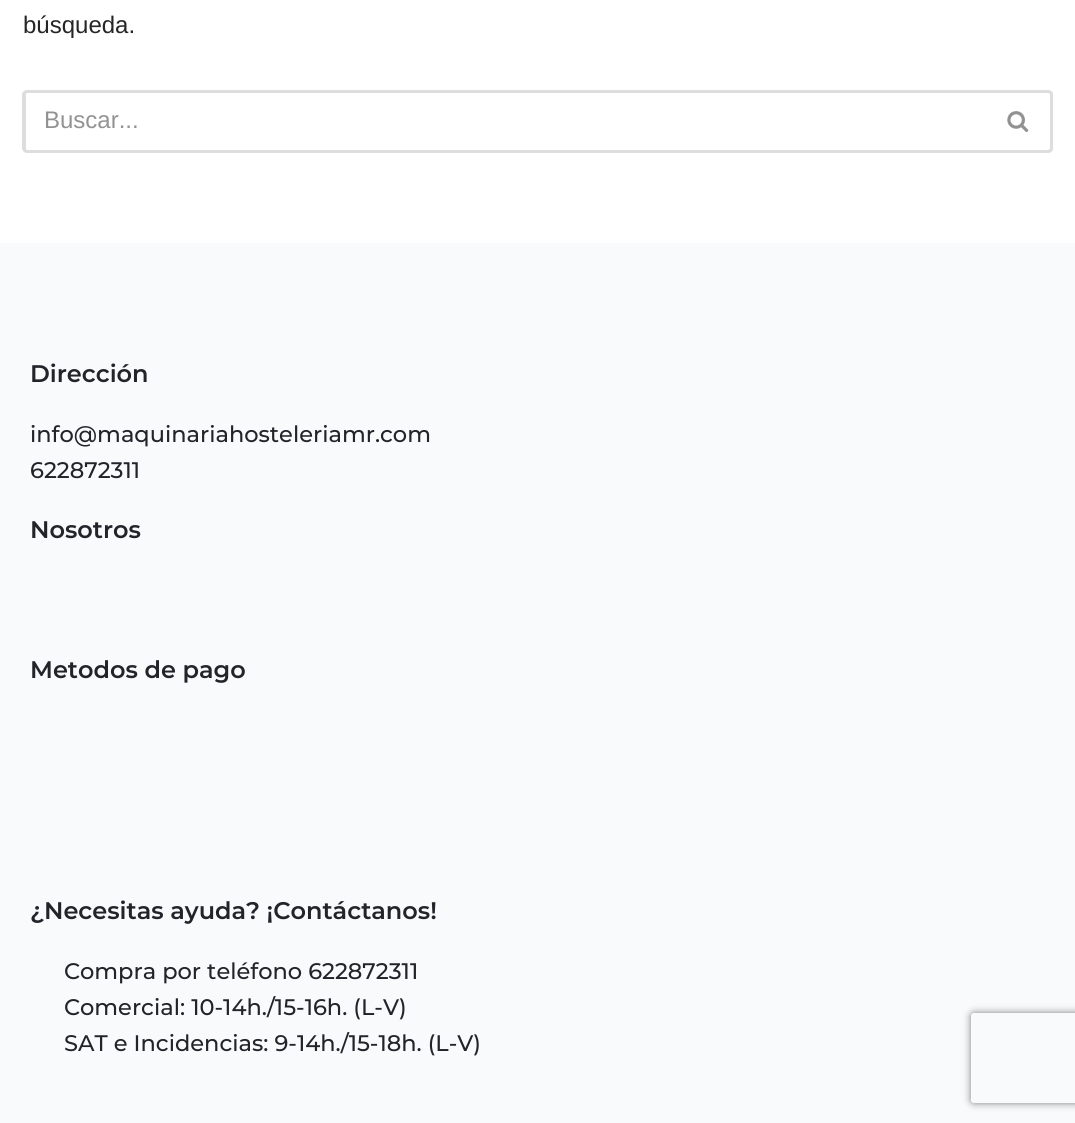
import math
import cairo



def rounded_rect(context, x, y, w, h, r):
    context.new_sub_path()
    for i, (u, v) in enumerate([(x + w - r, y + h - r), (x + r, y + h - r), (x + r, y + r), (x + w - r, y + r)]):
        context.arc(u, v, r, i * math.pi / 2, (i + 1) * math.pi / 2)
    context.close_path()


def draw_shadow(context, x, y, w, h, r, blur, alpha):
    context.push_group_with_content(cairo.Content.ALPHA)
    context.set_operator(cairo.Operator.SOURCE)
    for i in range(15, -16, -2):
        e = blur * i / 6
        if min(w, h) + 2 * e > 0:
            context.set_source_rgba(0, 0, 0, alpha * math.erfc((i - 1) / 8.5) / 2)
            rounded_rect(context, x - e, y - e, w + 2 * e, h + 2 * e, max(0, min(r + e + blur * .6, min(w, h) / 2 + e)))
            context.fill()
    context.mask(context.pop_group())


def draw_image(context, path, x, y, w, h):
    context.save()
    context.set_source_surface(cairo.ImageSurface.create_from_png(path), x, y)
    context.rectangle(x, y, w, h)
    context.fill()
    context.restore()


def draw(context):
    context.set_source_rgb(1, 1, 1)
    context.paint()
    context.set_source_rgb(221 / 255, 221 / 255, 221 / 255)
    context.set_fill_rule(cairo.FillRule.EVEN_ODD)
    context.new_path()
    context.move_to(27, 90)
    context.line_to(986, 90)
    context.line_to(986, 153)
    context.line_to(27, 153)
    context.curve_to(25, 153, 22, 151, 22, 148)
    context.line_to(22, 94)
    context.curve_to(22, 92, 25, 90, 27, 90)
    context.close_path()
    context.move_to(27, 93)
    context.line_to(986, 93)
    context.line_to(986, 150)
    context.line_to(27, 150)
    context.curve_to(26, 150, 26, 149, 26, 148)
    context.line_to(26, 94)
    context.curve_to(26, 94, 26, 93, 27, 93)
    context.close_path()
    context.fill()
    context.new_path()
    context.move_to(986, 90)
    context.line_to(1048, 90)
    context.curve_to(1051, 90, 1053, 92, 1053, 94)
    context.line_to(1053, 148)
    context.curve_to(1053, 151, 1051, 153, 1048, 153)
    context.line_to(986, 153)
    context.close_path()
    context.move_to(986, 93)
    context.line_to(1048, 93)
    context.curve_to(1049, 93, 1050, 94, 1050, 94)
    context.line_to(1050, 148)
    context.curve_to(1050, 149, 1049, 150, 1048, 150)
    context.line_to(986, 150)
    context.close_path()
    context.fill()
    draw_image(context, "images/1.png", 1007, 111, 22, 21)
    context.set_source_rgb(248 / 255, 250 / 255, 252 / 255)
    context.rectangle(0, 243, 1075, 880)
    context.fill()
    context.save()
    context.new_path()
    context.move_to(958, 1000)
    context.line_to(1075, 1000)
    context.line_to(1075, 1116)
    context.line_to(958, 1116)
    context.close_path()
    context.move_to(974, 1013)
    context.line_to(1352, 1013)
    context.curve_to(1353.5, 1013, 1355, 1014.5, 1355, 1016)
    context.line_to(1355, 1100)
    context.curve_to(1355, 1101.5, 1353.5, 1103, 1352, 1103)
    context.line_to(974, 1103)
    context.curve_to(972.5, 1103, 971, 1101.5, 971, 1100)
    context.line_to(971, 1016)
    context.curve_to(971, 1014.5, 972.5, 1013, 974, 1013)
    context.close_path()
    context.clip()
    context.set_source_rgb(128 / 255, 128 / 255, 128 / 255)
    draw_shadow(context, 971, 1013, 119, 90, 3, 4, 1)
    context.restore()
    context.select_font_face("Liberation Sans")
    context.set_font_size(24)
    context.set_source_rgb(39 / 255, 38 / 255, 38 / 255)
    context.move_to(23, 33)
    context.show_text("búsqueda.")
    context.set_source_rgb(147 / 255, 147 / 255, 147 / 255)
    context.move_to(44, 128)
    context.show_text("Buscar...")
    context.select_font_face("Montserrat SemiBold")
    context.set_source_rgb(33 / 255, 37 / 255, 41 / 255)
    context.move_to(30, 382)
    context.show_text("Dirección")
    context.select_font_face("Montserrat Medium")
    context.set_font_size(22.5)
    context.move_to(30, 442)
    context.show_text("info@maquinariahosteleriamr.com")
    context.move_to(30, 478)
    context.show_text("622872311")
    context.select_font_face("Montserrat SemiBold")
    context.set_font_size(24)
    context.move_to(30, 538)
    context.show_text("Nosotros")
    context.move_to(30, 678)
    context.show_text("Metodos de pago")
    context.move_to(30, 919)
    context.show_text("¿Necesitas ayuda? ¡Contáctanos!")
    context.select_font_face("Montserrat Medium")
    context.set_font_size(22.5)
    context.move_to(64, 979)
    context.show_text("Compra por teléfono 622872311")
    context.move_to(64, 1015)
    context.show_text("Comercial: 10-14h./15-16h. (L-V)")
    context.move_to(64, 1051)
    context.show_text("SAT e Incidencias: 9-14h./15-18h. (L-V)")


surface = cairo.ImageSurface(cairo.Format.RGB24, 1075, 1123)
context = cairo.Context(surface)
options = cairo.FontOptions()
options.set_hint_metrics(cairo.HintMetrics.OFF)
options.set_hint_style(cairo.HintStyle.NONE)
context.set_font_options(options)
context.set_miter_limit(4)
draw(context)
surface.write_to_png("out.png")
